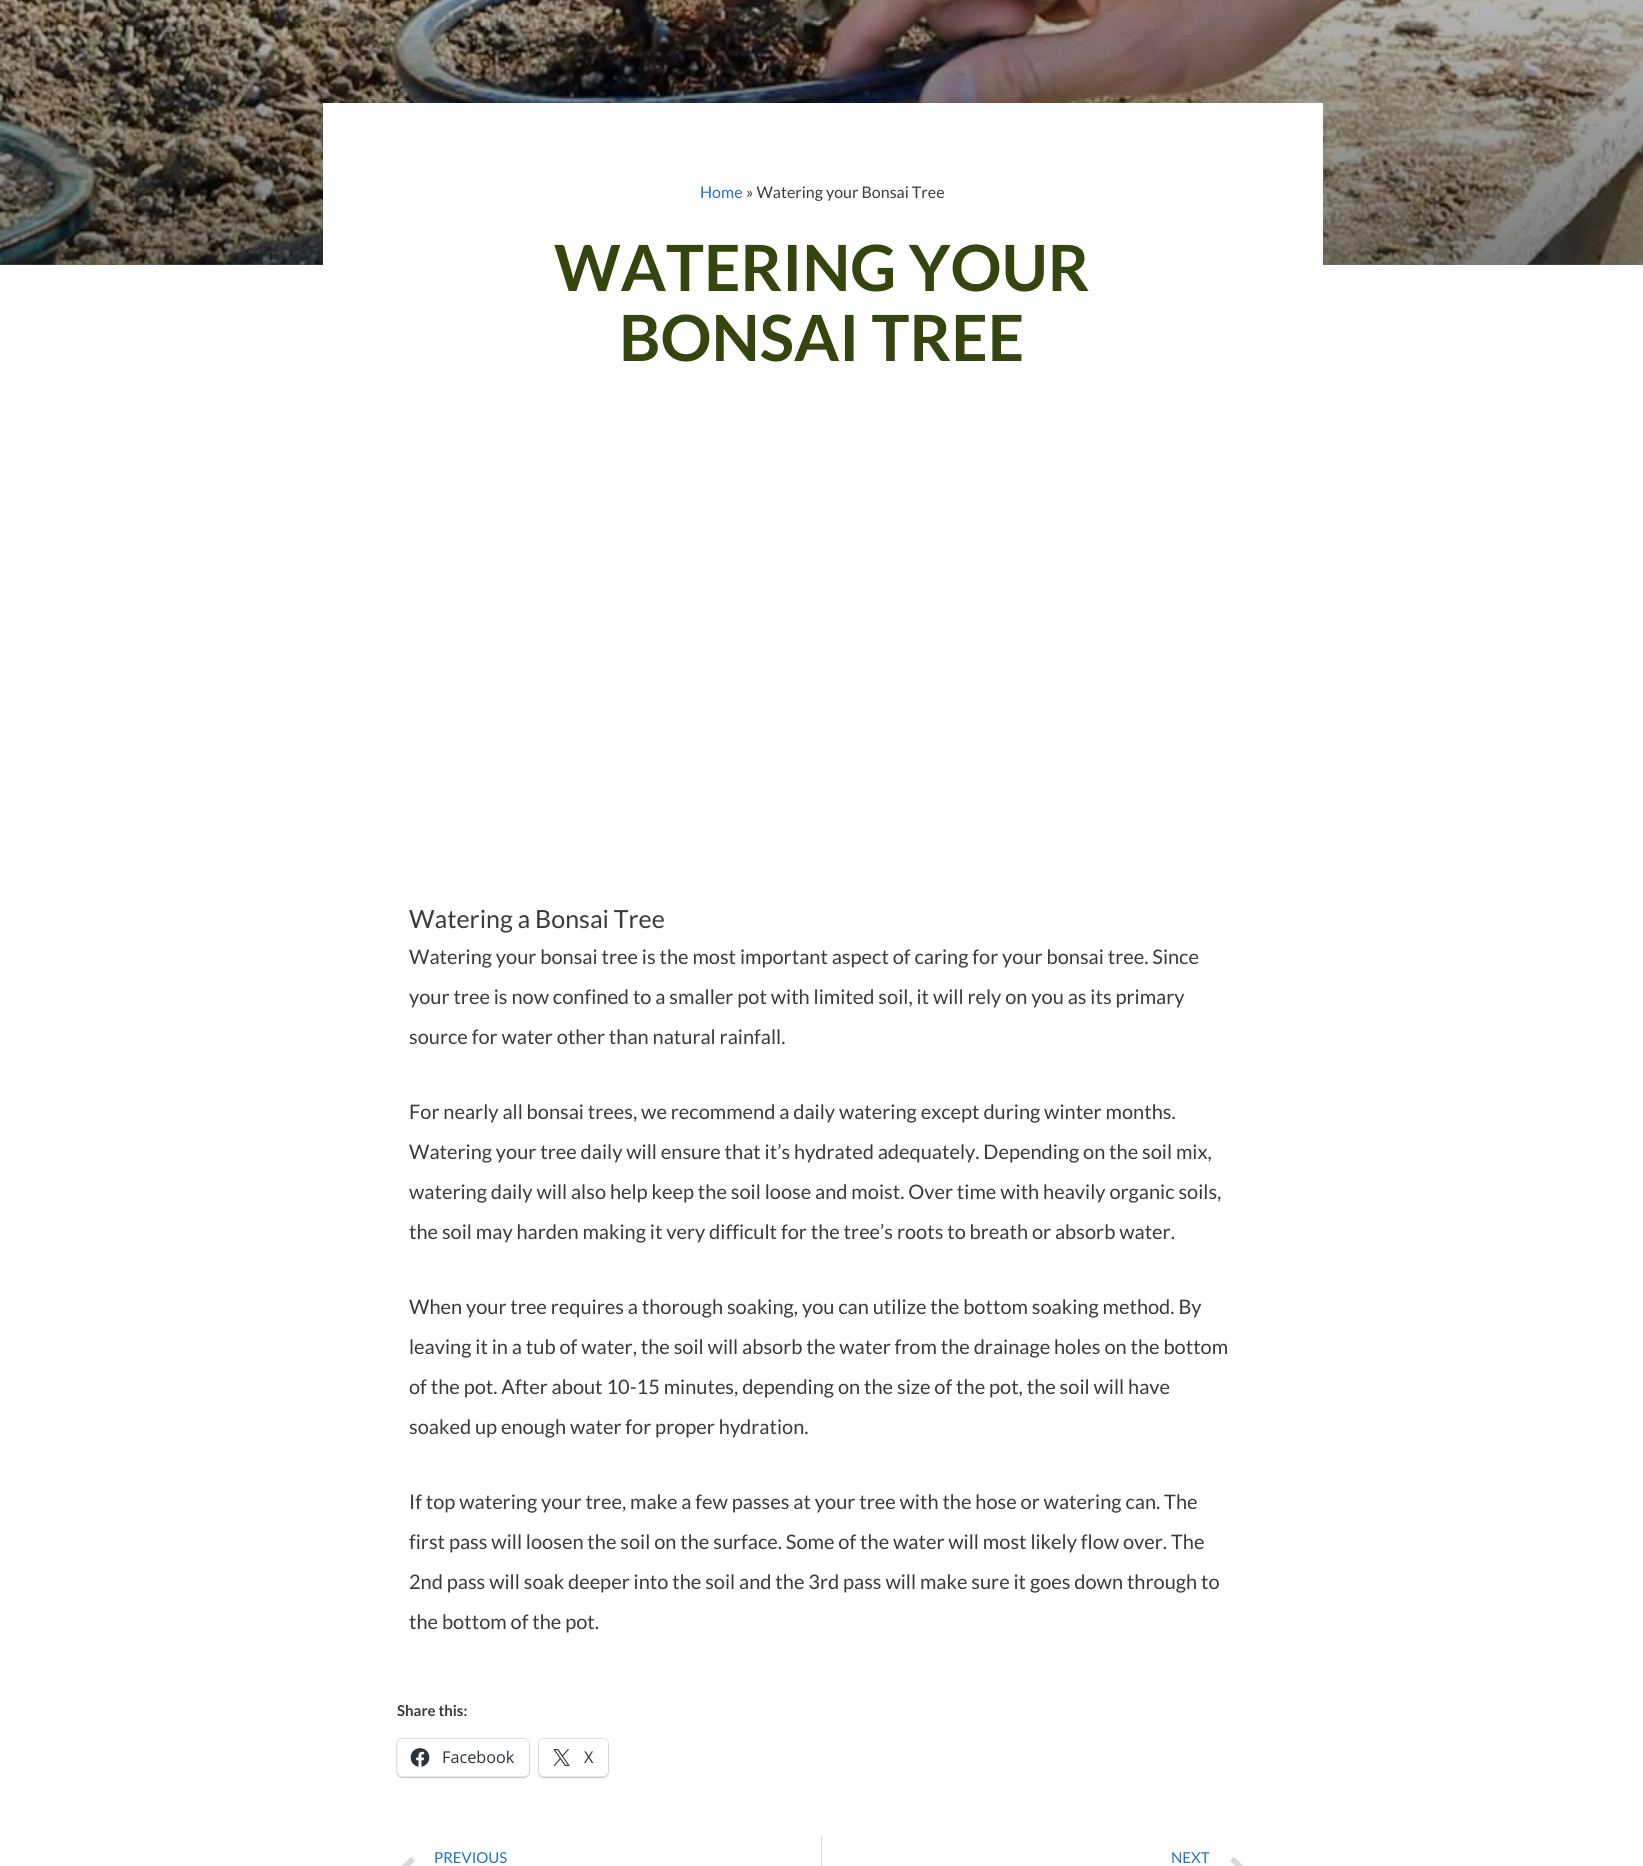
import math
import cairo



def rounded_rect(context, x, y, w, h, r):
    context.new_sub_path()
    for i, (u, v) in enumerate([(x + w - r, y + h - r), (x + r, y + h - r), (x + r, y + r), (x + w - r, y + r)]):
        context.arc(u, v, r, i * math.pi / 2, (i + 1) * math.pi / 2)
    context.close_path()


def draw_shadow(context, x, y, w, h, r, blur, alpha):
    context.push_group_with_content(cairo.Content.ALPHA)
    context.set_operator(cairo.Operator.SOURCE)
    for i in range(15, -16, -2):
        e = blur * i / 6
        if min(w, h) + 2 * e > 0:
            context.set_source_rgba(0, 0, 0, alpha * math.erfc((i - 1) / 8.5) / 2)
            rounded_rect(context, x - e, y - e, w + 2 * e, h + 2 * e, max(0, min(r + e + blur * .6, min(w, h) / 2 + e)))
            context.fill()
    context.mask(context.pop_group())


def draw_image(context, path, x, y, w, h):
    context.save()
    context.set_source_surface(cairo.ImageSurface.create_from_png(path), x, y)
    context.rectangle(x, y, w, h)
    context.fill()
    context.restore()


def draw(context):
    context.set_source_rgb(1, 1, 1)
    context.paint()
    draw_image(context, "images/1.png", 0, 0, 1643, 265)
    gradient = cairo.LinearGradient(822, -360, 822, 265)
    gradient.add_color_stop_rgba(0, 0, 0, 0, 0)
    gradient.add_color_stop_rgba(1, 0, 0, 0, 0.5)
    context.set_source(gradient)
    context.rectangle(0, 0, 1643, 265)
    context.fill()
    context.set_source_rgb(1, 1, 1)
    context.rectangle(323, 103, 1000, 162)
    context.fill()
    rounded_rect(context, 396.5, 1738.5, 133, 39, 5.5)
    context.set_source_rgb(224 / 255, 224 / 255, 224 / 255)
    context.set_line_width(1)
    context.stroke()
    context.set_source_rgb(0, 0, 0)
    draw_shadow(context, 398, 1740, 131, 38, 5, 1, 0.12)
    context.set_source_rgb(1, 1, 1)
    rounded_rect(context, 398, 1739, 131, 37, 5)
    context.fill()
    draw_image(context, "images/2.png", 410, 1748, 20, 19)
    rounded_rect(context, 538.5, 1738.5, 70, 39, 5.5)
    context.set_source_rgb(224 / 255, 224 / 255, 224 / 255)
    context.stroke()
    context.set_source_rgb(0, 0, 0)
    draw_shadow(context, 539, 1740, 69, 38, 5, 1, 0.12)
    context.set_source_rgb(1, 1, 1)
    rounded_rect(context, 539, 1739, 69, 37, 5)
    context.fill()
    draw_image(context, "images/3.png", 553, 1749, 17, 17)
    draw_image(context, "images/4.png", 402, 1857, 13, 9)
    context.set_source_rgb(213 / 255, 216 / 255, 220 / 255)
    context.rectangle(821, 1836, 1, 30)
    context.fill()
    draw_image(context, "images/5.png", 1230, 1857, 13, 9)
    context.select_font_face("Lato")
    context.set_font_size(16)
    context.set_source_rgb(30 / 255, 115 / 255, 190 / 255)
    context.move_to(700, 198)
    context.show_text("Home")
    context.set_source_rgb(58 / 255, 58 / 255, 58 / 255)
    context.move_to(746, 198)
    context.show_text("» Watering your Bonsai Tree")
    context.select_font_face("Lato", cairo.FontSlant.NORMAL, cairo.FontWeight.BOLD)
    context.set_font_size(63.75)
    context.set_source_rgb(52 / 255, 70 / 255, 13 / 255)
    context.move_to(554, 291)
    context.show_text("WATERING YOUR")
    context.move_to(619, 361)
    context.show_text("BONSAI TREE")
    context.select_font_face("Lato")
    context.set_font_size(25)
    context.set_source_rgb(58 / 255, 58 / 255, 58 / 255)
    context.move_to(409, 928)
    context.show_text("Watering a Bonsai Tree")
    context.set_font_size(20)
    context.move_to(409, 964)
    context.show_text("Watering your bonsai tree is the most important aspect of caring for your bonsai tree. Since")
    context.move_to(409, 1004)
    context.show_text("your tree is now confined to a smaller pot with limited soil, it will rely on you as its primary")
    context.move_to(409, 1044)
    context.show_text("source for water other than natural rainfall.")
    context.move_to(409, 1119)
    context.show_text("For nearly all bonsai trees, we recommend a daily watering except during winter months.")
    context.move_to(409, 1159)
    context.show_text("Watering your tree daily will ensure that it’s hydrated adequately. Depending on the soil mix,")
    context.move_to(409, 1199)
    context.show_text("watering daily will also help keep the soil loose and moist. Over time with heavily organic soils,")
    context.move_to(409, 1239)
    context.show_text("the soil may harden making it very difficult for the tree’s roots to breath or absorb water.")
    context.move_to(409, 1314)
    context.show_text("When your tree requires a thorough soaking, you can utilize the bottom soaking method. By")
    context.move_to(409, 1354)
    context.show_text("leaving it in a tub of water, the soil will absorb the water from the drainage holes on the bottom")
    context.move_to(409, 1394)
    context.show_text("of the pot. After about 10-15 minutes, depending on the size of the pot, the soil will have")
    context.move_to(409, 1434)
    context.show_text("soaked up enough water for proper hydration.")
    context.move_to(409, 1509)
    context.show_text("If top watering your tree, make a few passes at your tree with the hose or watering can. The")
    context.move_to(409, 1549)
    context.show_text("first pass will loosen the soil on the surface. Some of the water will most likely flow over. The")
    context.move_to(409, 1589)
    context.show_text("2nd pass will soak deeper into the soil and the 3rd pass will make sure it goes down through to")
    context.move_to(409, 1629)
    context.show_text("the bottom of the pot.")
    context.select_font_face("Lato", cairo.FontSlant.NORMAL, cairo.FontWeight.BOLD)
    context.set_font_size(15)
    context.move_to(397, 1716)
    context.show_text("Share this:")
    context.select_font_face("Open Sans")
    context.set_font_size(16.25)
    context.set_source_rgb(44 / 255, 51 / 255, 56 / 255)
    context.move_to(442, 1763)
    context.show_text("Facebook")
    context.move_to(584, 1763)
    context.show_text("X")
    context.select_font_face("Lato")
    context.set_font_size(15)
    context.set_source_rgb(30 / 255, 115 / 255, 190 / 255)
    context.move_to(434, 1863)
    context.show_text("PREVIOUS")
    context.move_to(1171, 1863)
    context.show_text("NEXT")


surface = cairo.ImageSurface(cairo.Format.RGB24, 1643, 1866)
context = cairo.Context(surface)
options = cairo.FontOptions()
options.set_hint_metrics(cairo.HintMetrics.OFF)
options.set_hint_style(cairo.HintStyle.NONE)
context.set_font_options(options)
context.set_miter_limit(4)
draw(context)
surface.write_to_png("out.png")
